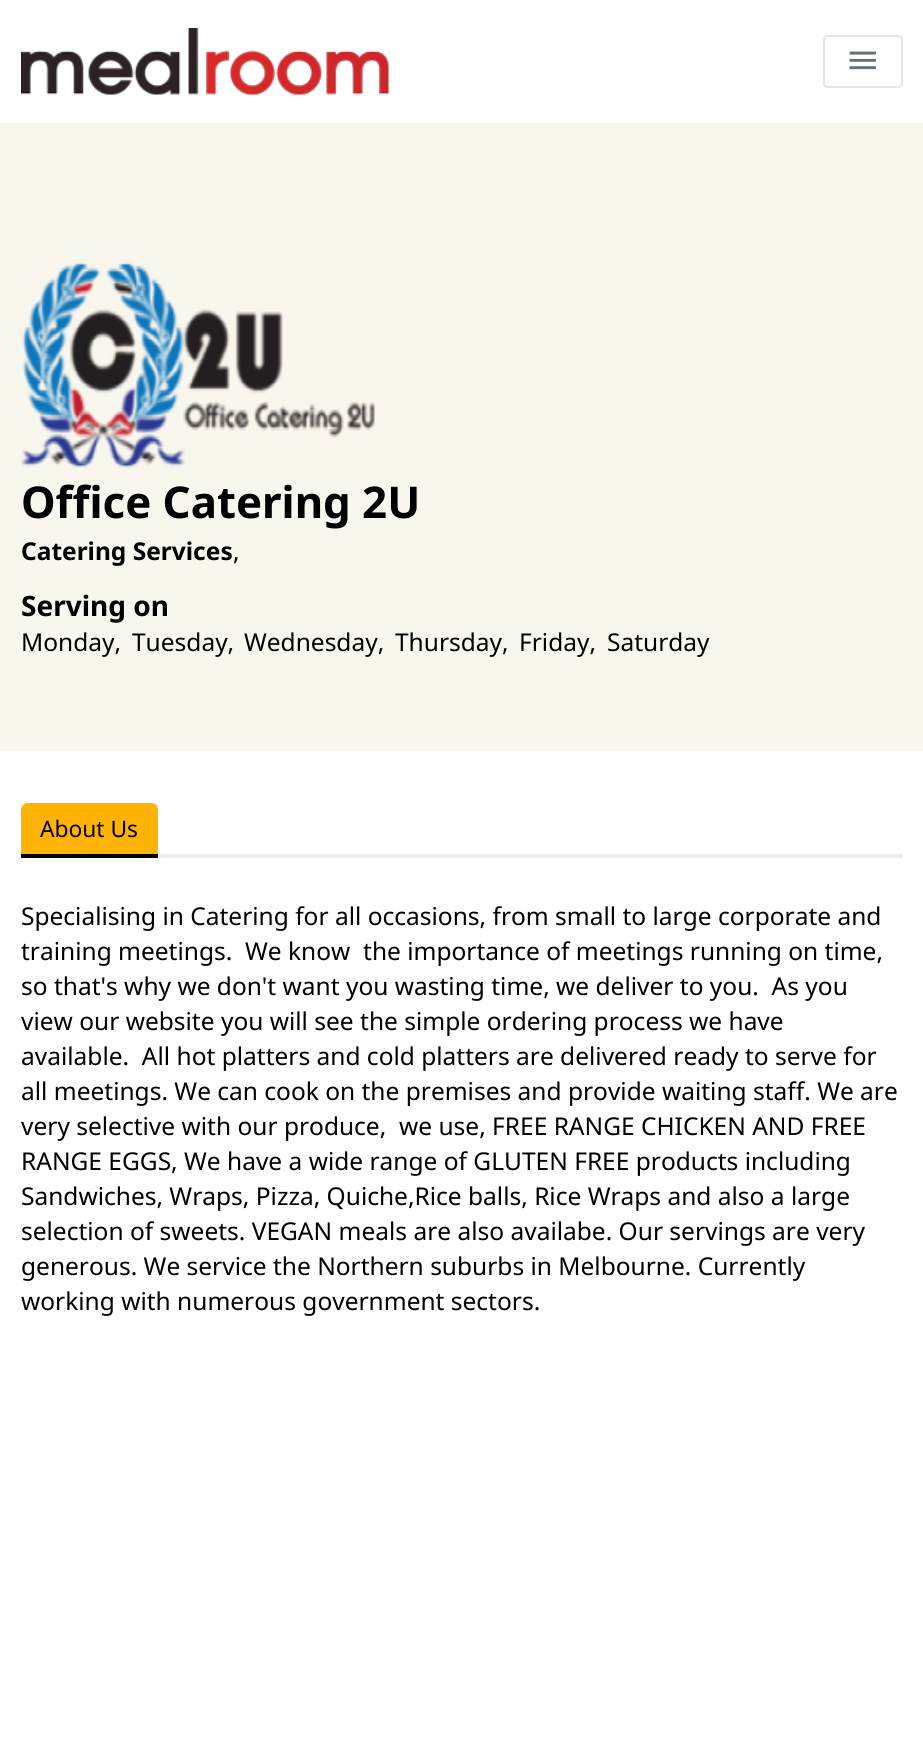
import math
import cairo



def rounded_rect(context, x, y, w, h, r):
    context.new_sub_path()
    for i, (u, v) in enumerate([(x + w - r, y + h - r), (x + r, y + h - r), (x + r, y + r), (x + w - r, y + r)]):
        context.arc(u, v, r, i * math.pi / 2, (i + 1) * math.pi / 2)
    context.close_path()


def draw_image(context, path, x, y, w, h):
    context.save()
    context.set_source_surface(cairo.ImageSurface.create_from_png(path), x, y)
    context.rectangle(x, y, w, h)
    context.fill()
    context.restore()


def draw(context):
    context.set_source_rgb(1, 1, 1)
    context.paint()
    draw_image(context, "images/1.png", 21, 28, 368, 67)
    rounded_rect(context, 824, 36, 78, 51, 3)
    context.set_source_rgb(230 / 255, 230 / 255, 230 / 255)
    context.stroke()
    draw_image(context, "images/2.png", 849, 51, 27, 19)
    context.set_source_rgb(249 / 255, 246 / 255, 237 / 255)
    context.rectangle(0, 123, 923, 628)
    context.fill()
    draw_image(context, "images/3.png", 21, 262, 354, 206)
    context.set_source_rgb(234 / 255, 237 / 255, 239 / 255)
    context.rectangle(158, 854, 745, 4)
    context.fill()
    context.set_source_rgb(1, 178 / 255, 0)
    context.new_path()
    context.move_to(28, 803)
    context.line_to(151, 803)
    context.curve_to(155, 803, 158, 806, 158, 810)
    context.line_to(158, 858)
    context.line_to(21, 858)
    context.line_to(21, 810)
    context.curve_to(21, 806, 24, 803, 28, 803)
    context.close_path()
    context.fill()
    context.set_source_rgb(0, 0, 0)
    context.rectangle(21, 854, 137, 4)
    context.fill()
    context.select_font_face("Noto Sans", cairo.FontSlant.NORMAL, cairo.FontWeight.BOLD)
    context.set_font_size(43.75)
    context.move_to(21, 518)
    context.show_text("Office Catering 2U")
    context.set_font_size(24.5)
    context.move_to(21, 560)
    context.show_text("Catering Services")
    context.select_font_face("Noto Sans")
    context.move_to(233, 560)
    context.show_text(",")
    context.select_font_face("Noto Sans", cairo.FontSlant.NORMAL, cairo.FontWeight.BOLD)
    context.set_font_size(28)
    context.move_to(21, 616)
    context.show_text("Serving on")
    context.select_font_face("Noto Sans")
    context.set_font_size(24.5)
    context.move_to(21, 651)
    context.show_text("Monday,")
    context.move_to(132, 651)
    context.show_text("Tuesday,")
    context.move_to(244, 651)
    context.show_text("Wednesday,")
    context.move_to(395, 651)
    context.show_text("Thursday,")
    context.move_to(519, 651)
    context.show_text("Friday,")
    context.move_to(607, 651)
    context.show_text("Saturday")
    context.set_font_size(22.75)
    context.move_to(40, 837)
    context.show_text("About Us")
    context.set_font_size(24.5)
    context.move_to(21, 925)
    context.show_text("Specialising in Catering for all occasions, from small to large corporate and")
    context.move_to(21, 960)
    context.show_text("training meetings.  We know  the importance of meetings running on time,")
    context.move_to(21, 995)
    context.show_text("so that's why we don't want you wasting time, we deliver to you.  As you")
    context.move_to(21, 1030)
    context.show_text("view our website you will see the simple ordering process we have")
    context.move_to(21, 1065)
    context.show_text("available.  All hot platters and cold platters are delivered ready to serve for")
    context.move_to(21, 1100)
    context.show_text("all meetings. We can cook on the premises and provide waiting staff. We are")
    context.move_to(21, 1135)
    context.show_text("very selective with our produce,  we use, FREE RANGE CHICKEN AND FREE")
    context.move_to(21, 1170)
    context.show_text("RANGE EGGS, We have a wide range of GLUTEN FREE products including")
    context.move_to(21, 1205)
    context.show_text("Sandwiches, Wraps, Pizza, Quiche,Rice balls, Rice Wraps and also a large")
    context.move_to(21, 1240)
    context.show_text("selection of sweets. VEGAN meals are also availabe. Our servings are very")
    context.move_to(21, 1275)
    context.show_text("generous. We service the Northern suburbs in Melbourne. Currently")
    context.move_to(21, 1310)
    context.show_text("working with numerous government sectors.")


surface = cairo.ImageSurface(cairo.Format.RGB24, 923, 1746)
context = cairo.Context(surface)
options = cairo.FontOptions()
options.set_hint_metrics(cairo.HintMetrics.OFF)
options.set_hint_style(cairo.HintStyle.NONE)
context.set_font_options(options)
context.set_miter_limit(4)
draw(context)
surface.write_to_png("out.png")
